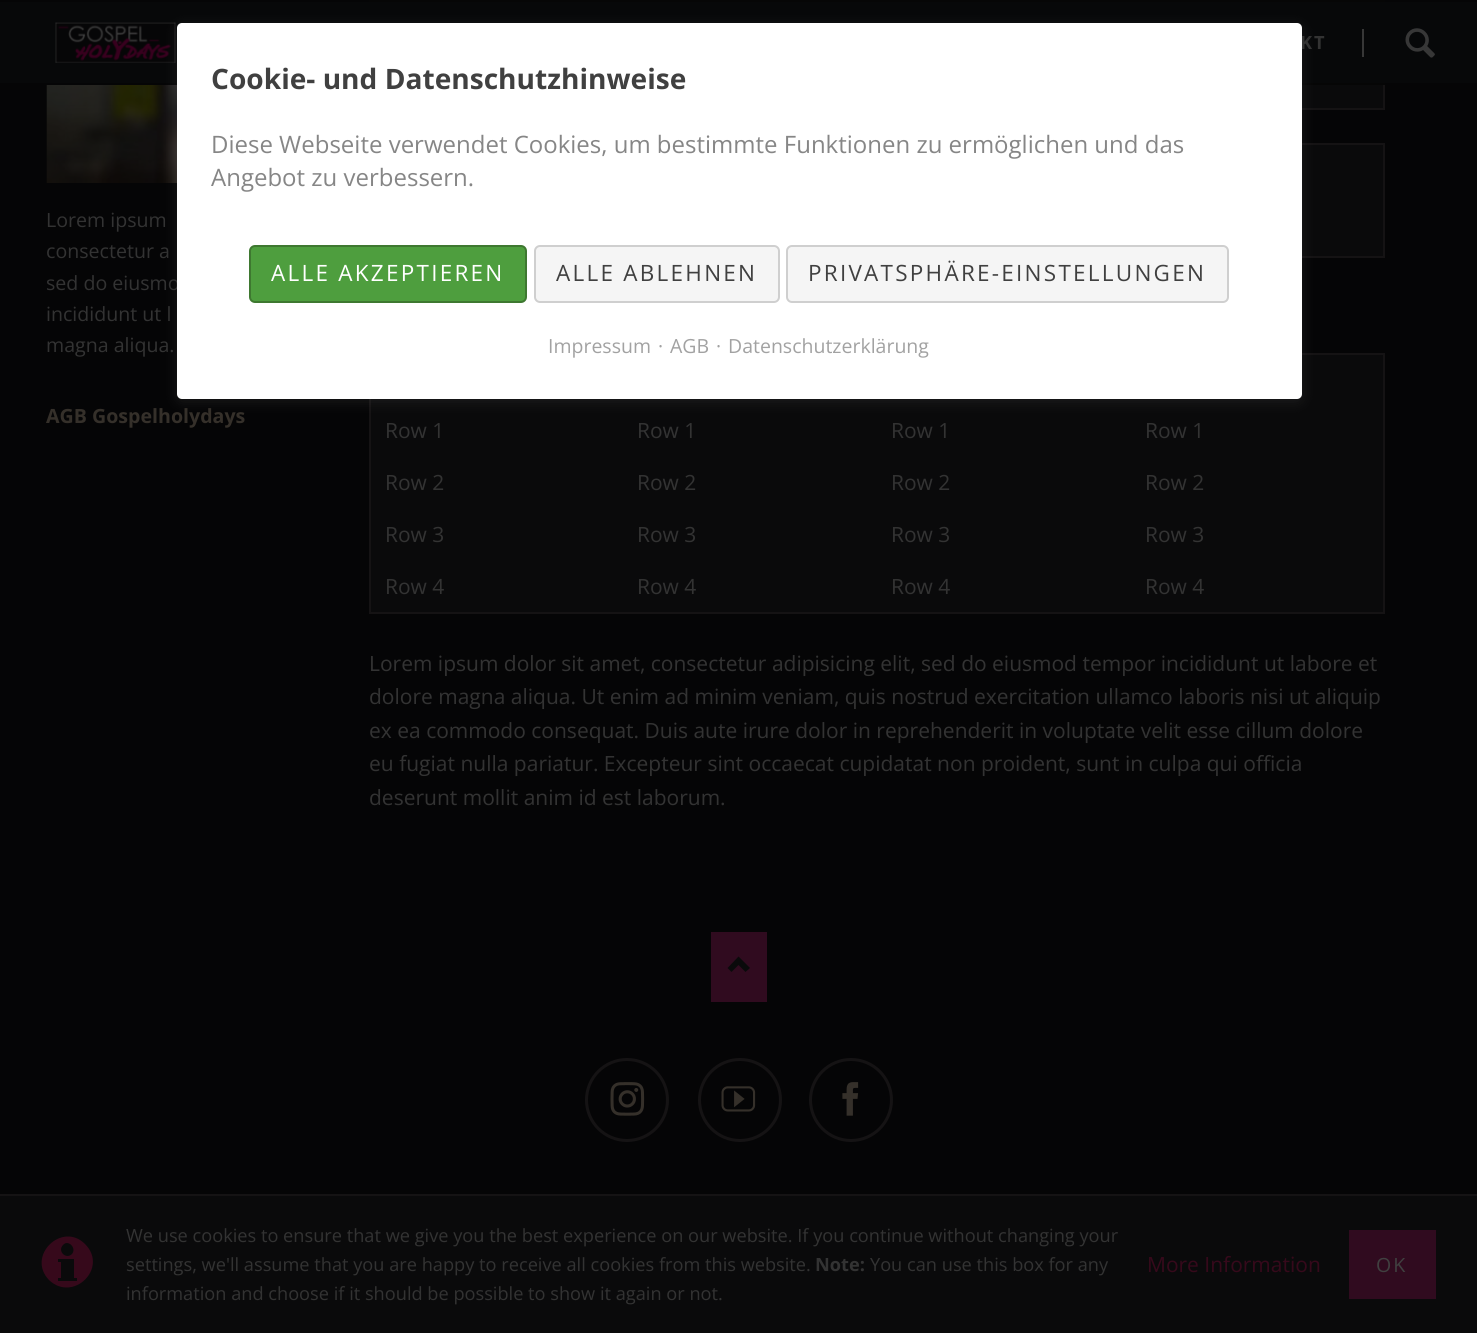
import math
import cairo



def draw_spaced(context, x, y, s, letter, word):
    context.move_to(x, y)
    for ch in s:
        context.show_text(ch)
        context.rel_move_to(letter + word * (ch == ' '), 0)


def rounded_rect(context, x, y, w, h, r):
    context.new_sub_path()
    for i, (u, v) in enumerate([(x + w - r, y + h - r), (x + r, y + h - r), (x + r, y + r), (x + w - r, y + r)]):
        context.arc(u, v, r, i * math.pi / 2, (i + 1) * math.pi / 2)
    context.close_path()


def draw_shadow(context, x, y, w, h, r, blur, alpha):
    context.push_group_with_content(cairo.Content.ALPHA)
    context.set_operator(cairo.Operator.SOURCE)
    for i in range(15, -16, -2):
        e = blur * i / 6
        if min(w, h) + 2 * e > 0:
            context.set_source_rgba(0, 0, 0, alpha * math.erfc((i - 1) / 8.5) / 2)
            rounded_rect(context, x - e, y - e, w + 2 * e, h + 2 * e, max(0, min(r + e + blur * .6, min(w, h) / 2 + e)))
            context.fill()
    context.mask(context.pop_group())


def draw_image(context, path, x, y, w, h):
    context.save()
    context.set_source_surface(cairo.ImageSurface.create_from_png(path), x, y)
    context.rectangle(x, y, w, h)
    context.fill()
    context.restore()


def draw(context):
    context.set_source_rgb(5 / 255, 5 / 255, 6 / 255)
    context.paint()
    context.set_source_rgb(10 / 255, 10 / 255, 11 / 255)
    context.rectangle(1302, 85, 81, 23)
    context.fill()
    context.rectangle(370, -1, 1014, 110)
    context.set_source_rgb(21 / 255, 19 / 255, 20 / 255)
    context.stroke()
    context.set_source_rgb(7 / 255, 8 / 255, 9 / 255)
    context.rectangle(0, 2, 1477, 81)
    context.fill()
    context.set_source_rgb(6 / 255, 6 / 255, 6 / 255)
    context.rectangle(369, 0, 1016, 2)
    context.fill()
    context.rectangle(369, 83, 1016, 2)
    context.fill()
    draw_image(context, "images/1.png", 55, 22, 121, 41)
    context.set_source_rgb(55 / 255, 55 / 255, 55 / 255)
    context.rectangle(1362, 29, 2, 28)
    context.fill()
    draw_image(context, "images/2.png", 1405, 28, 30, 30)
    context.set_source_rgb(10 / 255, 10 / 255, 11 / 255)
    context.rectangle(0, 1196, 1477, 137)
    context.fill()
    context.set_source_rgb(21 / 255, 19 / 255, 20 / 255)
    context.rectangle(0, 1194, 1477, 2)
    context.fill()
    context.set_source_rgb(54 / 255, 9 / 255, 27 / 255)
    context.new_path()
    context.move_to(85, 1244)
    context.curve_to(62, 1221, 26, 1256, 49, 1280)
    context.curve_to(73, 1303, 109, 1268, 85, 1244)
    context.close_path()
    context.move_to(63, 1245)
    context.curve_to(68, 1239, 77, 1248, 72, 1254)
    context.curve_to(66, 1260, 57, 1251, 63, 1245)
    context.close_path()
    context.move_to(77, 1281)
    context.line_to(58, 1281)
    context.line_to(58, 1278)
    context.line_to(61, 1278)
    context.line_to(61, 1262)
    context.line_to(58, 1262)
    context.line_to(58, 1259)
    context.line_to(74, 1259)
    context.line_to(74, 1278)
    context.line_to(77, 1278)
    context.close_path()
    context.fill()
    context.set_source_rgb(48 / 255, 11 / 255, 31 / 255)
    context.rectangle(1349, 1230, 87, 69)
    context.fill()
    draw_image(context, "images/3.png", 46, 85, 131, 98)
    context.set_source_rgb(10 / 255, 10 / 255, 11 / 255)
    context.rectangle(1302, 145, 81, 111)
    context.fill()
    context.rectangle(370, 144, 1014, 113)
    context.set_source_rgb(21 / 255, 19 / 255, 20 / 255)
    context.stroke()
    context.set_source_rgb(10 / 255, 10 / 255, 11 / 255)
    context.rectangle(370, 354, 1014, 259)
    context.fill_preserve()
    context.set_source_rgb(21 / 255, 19 / 255, 20 / 255)
    context.stroke()
    context.set_source_rgb(48 / 255, 11 / 255, 31 / 255)
    context.rectangle(711, 932, 56, 70)
    context.fill()
    context.set_source_rgb(10 / 255, 10 / 255, 11 / 255)
    context.new_path()
    context.move_to(727.5, 968)
    context.line_to(731.5, 972)
    context.line_to(738.5, 965)
    context.line_to(745.5, 972)
    context.line_to(750, 968)
    context.line_to(738.5, 956.5)
    context.close_path()
    context.fill()
    context.arc(627, 1100, 40.5, 0, 2 * math.pi)
    context.set_source_rgb(21 / 255, 19 / 255, 20 / 255)
    context.set_line_width(3)
    context.stroke()
    draw_image(context, "images/4.png", 610, 1082, 35, 34)
    context.arc(740, 1100, 40.5, 0, 2 * math.pi)
    context.stroke()
    draw_image(context, "images/5.png", 721, 1086, 35, 26)
    context.arc(851, 1100, 40.5, 0, 2 * math.pi)
    context.stroke()
    draw_image(context, "images/6.png", 842, 1082, 17, 34)
    context.set_source_rgb(99 / 255, 99 / 255, 99 / 255)
    draw_shadow(context, 177, 26, 1125, 376, 5, 6, 0.2)
    context.select_font_face("Open Sans", cairo.FontSlant.NORMAL, cairo.FontWeight.BOLD)
    context.set_font_size(18.2)
    context.set_source_rgb(51 / 255, 51 / 255, 51 / 255)
    draw_spaced(context, 1300, 49, "KT", 2, 0)
    context.select_font_face("Open Sans")
    context.move_to(126, 1242)
    context.show_text("We use cookies to ensure that we give you the best experience on our website. If you continue without changing your")
    context.move_to(126, 1271)
    context.show_text("settings, we'll assume that you are happy to receive all cookies from this website.")
    context.select_font_face("Open Sans", cairo.FontSlant.NORMAL, cairo.FontWeight.BOLD)
    context.move_to(815, 1271)
    context.show_text("Note:")
    context.select_font_face("Open Sans")
    context.move_to(870, 1271)
    context.show_text("You can use this box for any")
    context.move_to(126, 1300)
    context.show_text("information and choose if it should be possible to show it again or not.")
    context.set_font_size(21)
    context.set_source_rgb(54 / 255, 9 / 255, 27 / 255)
    context.move_to(1147, 1272)
    context.show_text("More Information")
    context.set_font_size(19.6)
    context.set_source_rgb(64 / 255, 64 / 255, 64 / 255)
    draw_spaced(context, 1376, 1272, "OK", 2, 0)
    context.set_source_rgb(51 / 255, 51 / 255, 51 / 255)
    context.move_to(46, 227)
    context.show_text("Lorem ipsum")
    context.move_to(46, 258)
    context.show_text("consectetur a")
    context.move_to(46, 290)
    context.show_text("sed do eiusmo")
    context.move_to(46, 321)
    context.show_text("incididunt ut l")
    context.move_to(46, 352)
    context.show_text("magna aliqua.")
    context.select_font_face("Open Sans", cairo.FontSlant.NORMAL, cairo.FontWeight.BOLD)
    context.set_source_rgb(53 / 255, 48 / 255, 42 / 255)
    context.move_to(46, 423)
    context.show_text("AGB Gospelholydays")
    context.select_font_face("Open Sans")
    context.set_font_size(21)
    context.set_source_rgb(51 / 255, 51 / 255, 51 / 255)
    context.move_to(385, 438)
    context.show_text("Row 1")
    context.move_to(637, 438)
    context.show_text("Row 1")
    context.move_to(891, 438)
    context.show_text("Row 1")
    context.move_to(1145, 438)
    context.show_text("Row 1")
    context.move_to(385, 490)
    context.show_text("Row 2")
    context.move_to(637, 490)
    context.show_text("Row 2")
    context.move_to(891, 490)
    context.show_text("Row 2")
    context.move_to(1145, 490)
    context.show_text("Row 2")
    context.move_to(385, 542)
    context.show_text("Row 3")
    context.move_to(637, 542)
    context.show_text("Row 3")
    context.move_to(891, 542)
    context.show_text("Row 3")
    context.move_to(1145, 542)
    context.show_text("Row 3")
    context.move_to(385, 594)
    context.show_text("Row 4")
    context.move_to(637, 594)
    context.show_text("Row 4")
    context.move_to(891, 594)
    context.show_text("Row 4")
    context.move_to(1145, 594)
    context.show_text("Row 4")
    context.move_to(369, 671)
    context.show_text("Lorem ipsum dolor sit amet, consectetur adipisicing elit, sed do eiusmod tempor incididunt ut labore et")
    context.move_to(369, 704)
    context.show_text("dolore magna aliqua. Ut enim ad minim veniam, quis nostrud exercitation ullamco laboris nisi ut aliquip")
    context.move_to(369, 738)
    context.show_text("ex ea commodo consequat. Duis aute irure dolor in reprehenderit in voluptate velit esse cillum dolore")
    context.move_to(369, 771)
    context.show_text("eu fugiat nulla pariatur. Excepteur sint occaecat cupidatat non proident, sunt in culpa qui officia")
    context.move_to(369, 805)
    context.show_text("deserunt mollit anim id est laborum.")
    context.set_source_rgb(1, 1, 1)
    rounded_rect(context, 177, 23, 1125, 376, 5)
    context.fill()
    context.select_font_face("Open Sans", cairo.FontSlant.NORMAL, cairo.FontWeight.BOLD)
    context.set_font_size(28.1)
    context.set_source_rgb(64 / 255, 64 / 255, 64 / 255)
    context.move_to(211, 89)
    context.show_text("Cookie- und Datenschutzhinweise")
    context.select_font_face("Open Sans")
    context.set_font_size(24)
    context.set_source_rgb(134 / 255, 134 / 255, 134 / 255)
    context.move_to(211, 153)
    context.show_text("Diese Webseite verwendet Cookies, um bestimmte Funktionen zu ermöglichen und das")
    context.move_to(211, 186)
    context.show_text("Angebot zu verbessern.")
    context.set_source_rgb(78 / 255, 158 / 255, 62 / 255)
    rounded_rect(context, 250, 246, 276, 56, 5)
    context.fill_preserve()
    context.set_source_rgb(62 / 255, 120 / 255, 48 / 255)
    context.set_line_width(2)
    context.stroke()
    context.set_font_size(22.5)
    context.set_source_rgb(1, 1, 1)
    draw_spaced(context, 271, 281, "ALLE AKZEPTIEREN", 2.25, 0)
    context.set_source_rgb(245 / 255, 245 / 255, 245 / 255)
    rounded_rect(context, 535, 246, 244, 56, 5)
    context.fill_preserve()
    context.set_source_rgb(207 / 255, 207 / 255, 207 / 255)
    context.stroke()
    context.set_source_rgb(64 / 255, 64 / 255, 64 / 255)
    draw_spaced(context, 556, 281, "ALLE ABLEHNEN", 2.25, 0)
    context.set_source_rgb(245 / 255, 245 / 255, 245 / 255)
    rounded_rect(context, 787, 246, 441, 56, 5)
    context.fill_preserve()
    context.set_source_rgb(207 / 255, 207 / 255, 207 / 255)
    context.stroke()
    context.set_source_rgb(64 / 255, 64 / 255, 64 / 255)
    draw_spaced(context, 808, 281, "PRIVATSPHÄRE-EINSTELLUNGEN", 2.25, 0)
    context.set_font_size(19.5)
    context.set_source_rgb(162 / 255, 162 / 255, 162 / 255)
    context.move_to(548, 353)
    context.show_text("Impressum")
    context.move_to(658, 353)
    context.show_text("·")
    context.move_to(670, 353)
    context.show_text("AGB")
    context.move_to(716, 353)
    context.show_text("·")
    context.move_to(728, 353)
    context.show_text("Datenschutzerklärung")


surface = cairo.ImageSurface(cairo.Format.RGB24, 1477, 1333)
context = cairo.Context(surface)
options = cairo.FontOptions()
options.set_hint_metrics(cairo.HintMetrics.OFF)
options.set_hint_style(cairo.HintStyle.NONE)
context.set_font_options(options)
context.set_miter_limit(4)
draw(context)
surface.write_to_png("out.png")
